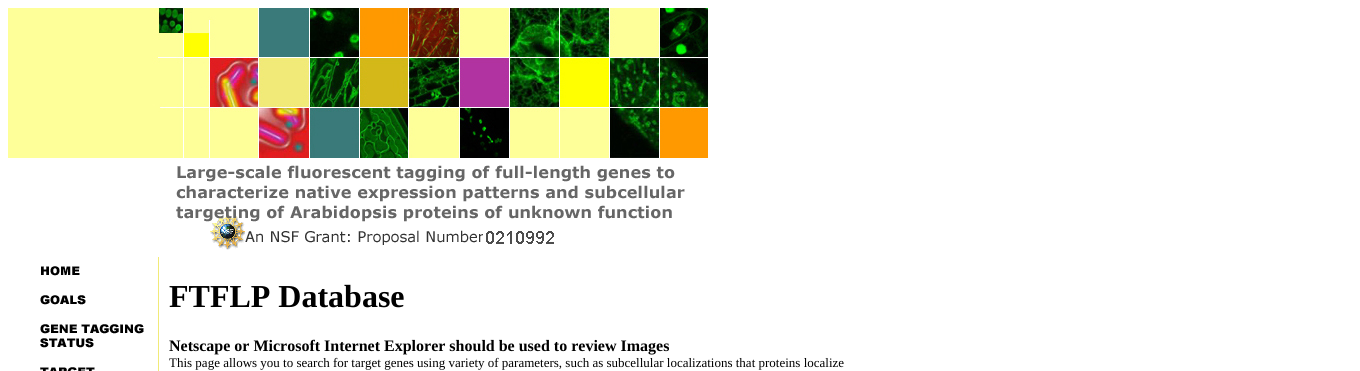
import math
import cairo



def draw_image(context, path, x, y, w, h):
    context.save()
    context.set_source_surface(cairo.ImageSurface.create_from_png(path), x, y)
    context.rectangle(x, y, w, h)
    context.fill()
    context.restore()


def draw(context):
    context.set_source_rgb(1, 1, 1)
    context.paint()
    draw_image(context, "images/1.png", 8, 8, 700, 150)
    draw_image(context, "images/2.png", 176, 165, 509, 85)
    draw_image(context, "images/3.png", 40, 266, 104, 105)
    context.set_source_rgb(241 / 255, 234 / 255, 120 / 255)
    context.rectangle(158, 257, 1, 114)
    context.fill()
    context.select_font_face("Liberation Serif", cairo.FontSlant.NORMAL, cairo.FontWeight.BOLD)
    context.set_font_size(32)
    context.set_source_rgb(0, 0, 0)
    context.move_to(169, 307)
    context.show_text("FTFLP Database")
    context.set_font_size(16)
    context.move_to(169, 351)
    context.show_text("Netscape or Microsoft Internet Explorer should be used to review Images")
    context.select_font_face("Liberation Serif")
    context.set_font_size(13)
    context.move_to(169, 367)
    context.show_text("This page allows you to search for target genes using variety of parameters, such as subcellular localizations that proteins localize")


surface = cairo.ImageSurface(cairo.Format.RGB24, 1360, 371)
context = cairo.Context(surface)
options = cairo.FontOptions()
options.set_hint_metrics(cairo.HintMetrics.OFF)
options.set_hint_style(cairo.HintStyle.NONE)
context.set_font_options(options)
context.set_miter_limit(4)
draw(context)
surface.write_to_png("out.png")
